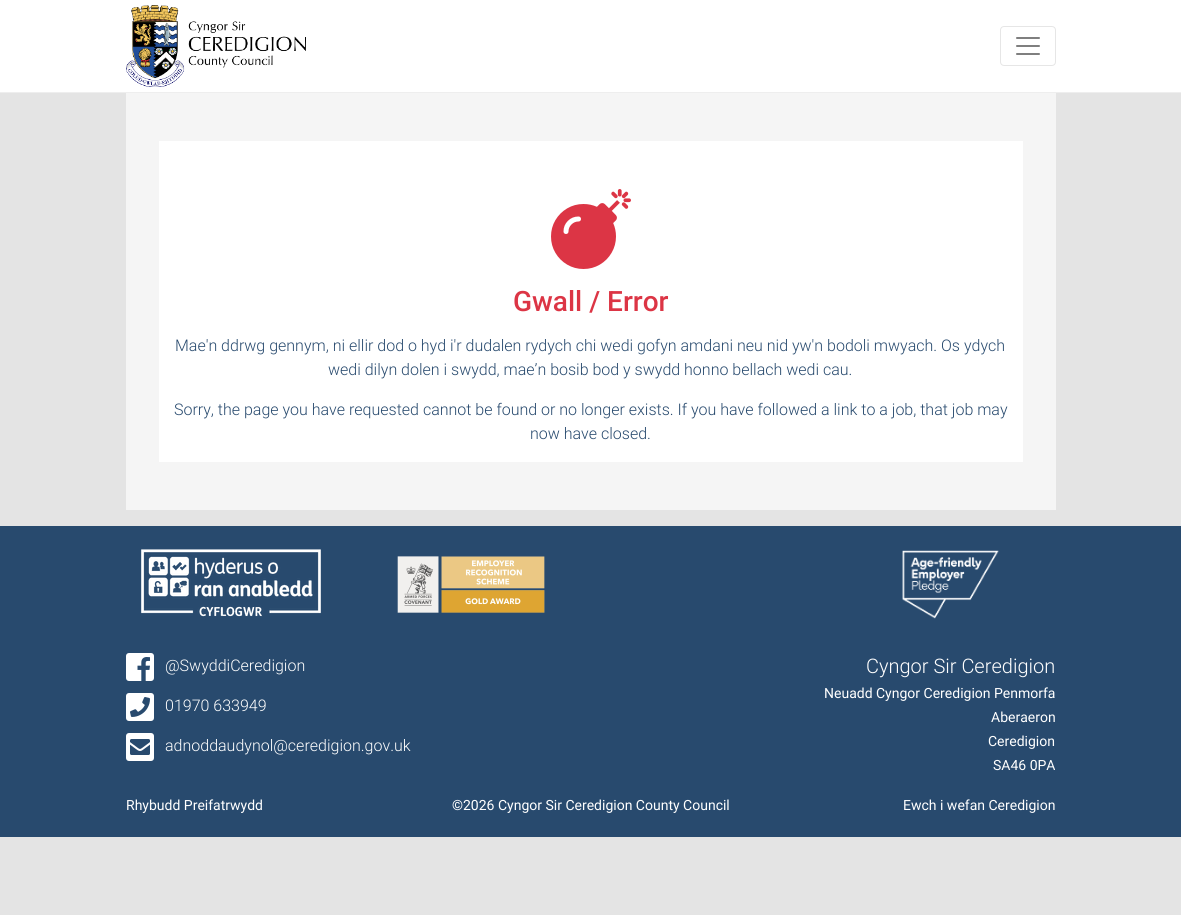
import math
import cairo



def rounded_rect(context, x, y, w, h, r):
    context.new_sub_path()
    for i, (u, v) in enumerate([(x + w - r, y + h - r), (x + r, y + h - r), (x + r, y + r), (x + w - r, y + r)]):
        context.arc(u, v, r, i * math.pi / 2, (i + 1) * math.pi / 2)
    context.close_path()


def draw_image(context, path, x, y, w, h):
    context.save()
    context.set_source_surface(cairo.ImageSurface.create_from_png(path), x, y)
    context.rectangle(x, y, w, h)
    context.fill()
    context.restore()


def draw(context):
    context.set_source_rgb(228 / 255, 228 / 255, 228 / 255)
    context.paint()
    context.set_source_rgb(238 / 255, 238 / 255, 238 / 255)
    context.rectangle(0, 92, 1181, 1)
    context.fill()
    context.set_source_rgb(1, 1, 1)
    context.rectangle(0, 0, 1181, 92)
    context.fill()
    draw_image(context, "images/1.png", 126, 5, 180, 82)
    rounded_rect(context, 1000.5, 26.5, 55, 39, 3.5)
    context.set_source_rgb(230 / 255, 230 / 255, 230 / 255)
    context.set_line_width(1)
    context.stroke()
    draw_image(context, "images/2.png", 1016, 37, 24, 18)
    context.set_source_rgb(245 / 255, 245 / 255, 245 / 255)
    context.rectangle(126, 93, 930, 417)
    context.fill()
    context.set_source_rgb(1, 1, 1)
    context.rectangle(159, 141, 864, 321)
    context.fill()
    draw_image(context, "images/3.png", 551, 189, 80, 80)
    context.set_source_rgb(40 / 255, 74 / 255, 110 / 255)
    context.rectangle(0, 526, 1181, 311)
    context.fill()
    draw_image(context, "images/4.png", 141, 549, 180, 68)
    draw_image(context, "images/5.png", 397, 556, 148, 57)
    draw_image(context, "images/6.png", 902, 550, 97, 69)
    draw_image(context, "images/7.png", 126, 653, 28, 28)
    draw_image(context, "images/8.png", 126, 693, 28, 28)
    draw_image(context, "images/9.png", 126, 733, 28, 28)
    context.select_font_face("Roboto Medium")
    context.set_font_size(28)
    context.set_source_rgb(220 / 255, 53 / 255, 69 / 255)
    context.move_to(513, 311)
    context.show_text("Gwall / Error")
    context.select_font_face("Roboto Light")
    context.set_font_size(16)
    context.set_source_rgb(40 / 255, 74 / 255, 110 / 255)
    context.move_to(175, 351)
    context.show_text("Mae'n ddrwg gennym, ni ellir dod o hyd i'r dudalen rydych chi wedi gofyn amdani neu nid yw'n bodoli mwyach. Os ydych")
    context.move_to(328, 375)
    context.show_text("wedi dilyn dolen i swydd, mae’n bosib bod y swydd honno bellach wedi cau.")
    context.move_to(174, 415)
    context.show_text("Sorry, the page you have requested cannot be found or no longer exists. If you have followed a link to a job, that job may")
    context.move_to(530, 439)
    context.show_text("now have closed.")
    context.set_source_rgb(1, 1, 1)
    context.move_to(165, 671)
    context.show_text("@SwyddiCeredigion")
    context.move_to(165, 711)
    context.show_text("01970 633949")
    context.move_to(165, 751)
    context.show_text("adnoddaudynol@ceredigion.gov.uk")
    context.set_font_size(20)
    context.move_to(866, 673)
    context.show_text("Cyngor Sir Ceredigion")
    context.select_font_face("Roboto")
    context.set_font_size(14)
    context.move_to(824, 698)
    context.show_text("Neuadd Cyngor Ceredigion Penmorfa")
    context.move_to(991, 722)
    context.show_text("Aberaeron")
    context.move_to(988, 746)
    context.show_text("Ceredigion")
    context.move_to(993, 770)
    context.show_text("SA46 0PA")
    context.move_to(126, 810)
    context.show_text("Rhybudd Preifatrwydd")
    context.move_to(452, 810)
    context.show_text("©2026 Cyngor Sir Ceredigion County Council")
    context.move_to(903, 810)
    context.show_text("Ewch i wefan Ceredigion")


surface = cairo.ImageSurface(cairo.Format.RGB24, 1181, 915)
context = cairo.Context(surface)
options = cairo.FontOptions()
options.set_hint_metrics(cairo.HintMetrics.OFF)
options.set_hint_style(cairo.HintStyle.NONE)
context.set_font_options(options)
context.set_miter_limit(4)
draw(context)
surface.write_to_png("out.png")
